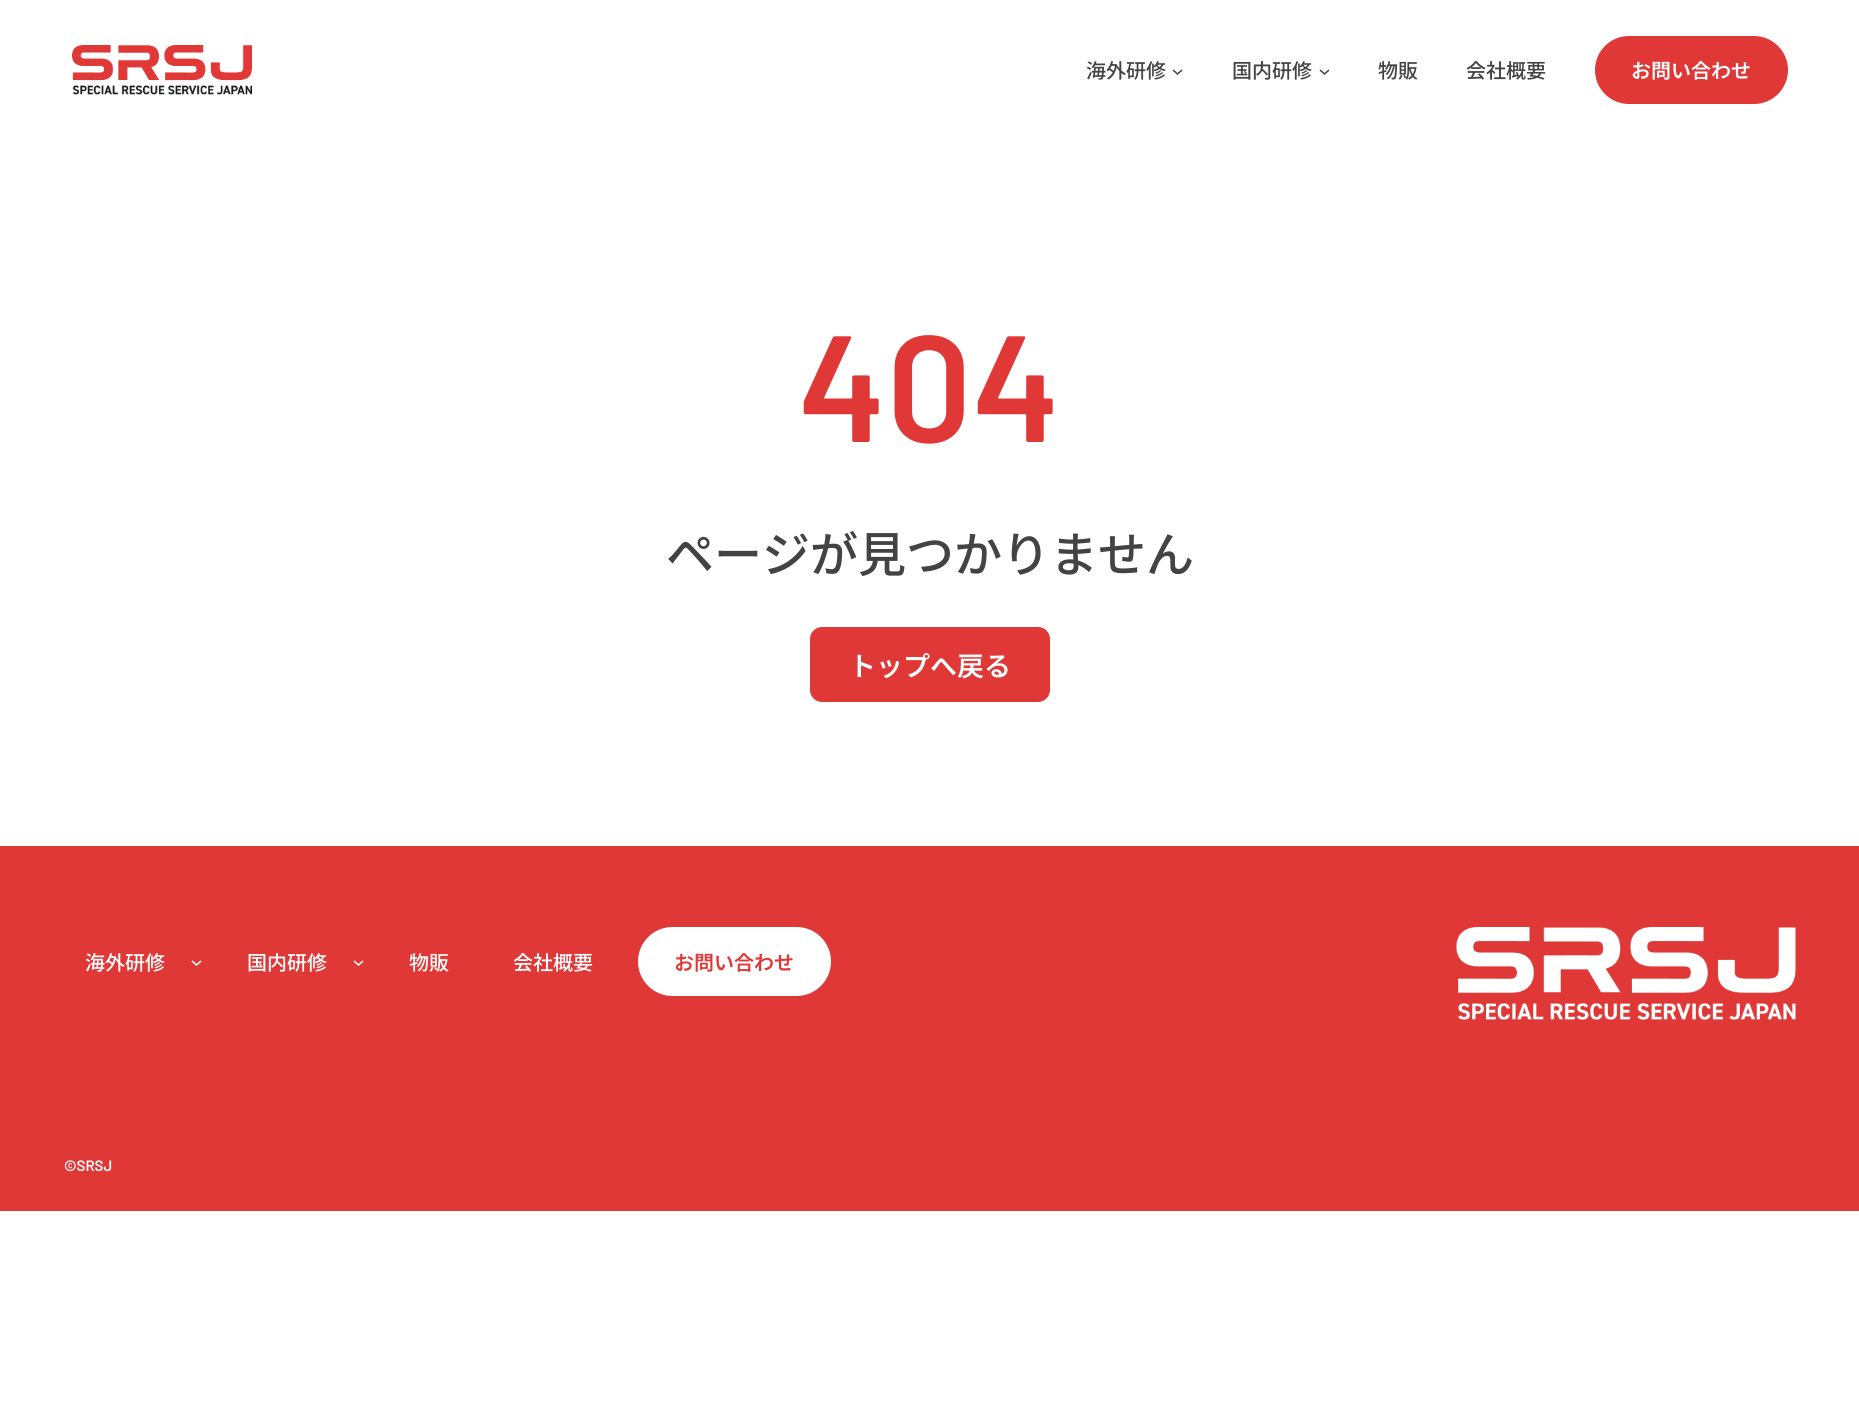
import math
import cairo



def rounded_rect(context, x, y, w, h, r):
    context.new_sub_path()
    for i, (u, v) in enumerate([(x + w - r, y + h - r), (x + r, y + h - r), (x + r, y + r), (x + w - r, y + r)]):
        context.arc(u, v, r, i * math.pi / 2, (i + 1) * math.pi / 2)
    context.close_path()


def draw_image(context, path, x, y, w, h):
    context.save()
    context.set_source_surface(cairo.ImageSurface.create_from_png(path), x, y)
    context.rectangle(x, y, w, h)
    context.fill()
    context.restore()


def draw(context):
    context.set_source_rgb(1, 1, 1)
    context.paint()
    draw_image(context, "images/1.png", 72, 45, 180, 50)
    context.new_path()
    context.move_to(1173, 70)
    context.line_to(1177.5, 74)
    context.line_to(1182, 70)
    context.set_source_rgb(67 / 255, 67 / 255, 67 / 255)
    context.set_line_width(1.5)
    context.stroke()
    context.new_path()
    context.move_to(1320, 70)
    context.line_to(1324.5, 74)
    context.line_to(1329, 70)
    context.stroke()
    context.set_source_rgb(224 / 255, 55 / 255, 55 / 255)
    rounded_rect(context, 1595, 36, 193, 68, 34)
    context.fill()
    rounded_rect(context, 810, 627, 240, 75, 12)
    context.fill()
    context.rectangle(0, 846, 1859, 365)
    context.fill()
    context.new_path()
    context.move_to(192, 961)
    context.line_to(196.5, 965)
    context.line_to(201, 961)
    context.set_source_rgb(1, 1, 1)
    context.stroke()
    context.new_path()
    context.move_to(354, 961)
    context.line_to(358.5, 965)
    context.line_to(363, 961)
    context.stroke()
    rounded_rect(context, 638, 927, 193, 69, 34.5)
    context.fill()
    draw_image(context, "images/2.png", 1456, 927, 340, 93)
    context.select_font_face("Noto Sans JP Medium")
    context.set_font_size(20)
    context.set_source_rgb(67 / 255, 67 / 255, 67 / 255)
    context.move_to(1086, 78)
    context.show_text("海外研修")
    context.move_to(1232, 78)
    context.show_text("国内研修")
    context.move_to(1378, 78)
    context.show_text("物販")
    context.move_to(1466, 78)
    context.show_text("会社概要")
    context.select_font_face("Noto Sans JP SemiBold")
    context.set_source_rgb(1, 1, 1)
    context.move_to(1631, 78)
    context.show_text("お問い合わせ")
    context.select_font_face("Barlow SemiBold")
    context.set_font_size(151)
    context.set_source_rgb(224 / 255, 55 / 255, 55 / 255)
    context.move_to(798, 442)
    context.show_text("404")
    context.select_font_face("Noto Sans JP Medium")
    context.set_font_size(48)
    context.set_source_rgb(67 / 255, 67 / 255, 67 / 255)
    context.move_to(666, 572)
    context.show_text("ページが見つかりません")
    context.select_font_face("Noto Sans JP SemiBold")
    context.set_font_size(27)
    context.set_source_rgb(1, 1, 1)
    context.move_to(849, 676)
    context.show_text("トップへ戻る")
    context.select_font_face("Noto Sans JP Medium")
    context.set_font_size(20)
    context.move_to(85, 970)
    context.show_text("海外研修")
    context.move_to(247, 970)
    context.show_text("国内研修")
    context.move_to(409, 970)
    context.show_text("物販")
    context.move_to(513, 970)
    context.show_text("会社概要")
    context.select_font_face("Noto Sans JP SemiBold")
    context.set_source_rgb(224 / 255, 55 / 255, 55 / 255)
    context.move_to(674, 970)
    context.show_text("お問い合わせ")
    context.select_font_face("Barlow SemiBold")
    context.set_font_size(15)
    context.set_source_rgb(1, 1, 1)
    context.move_to(64, 1171)
    context.show_text("©SRSJ")


surface = cairo.ImageSurface(cairo.Format.RGB24, 1859, 1427)
context = cairo.Context(surface)
options = cairo.FontOptions()
options.set_hint_metrics(cairo.HintMetrics.OFF)
options.set_hint_style(cairo.HintStyle.NONE)
context.set_font_options(options)
context.set_miter_limit(4)
draw(context)
surface.write_to_png("out.png")
